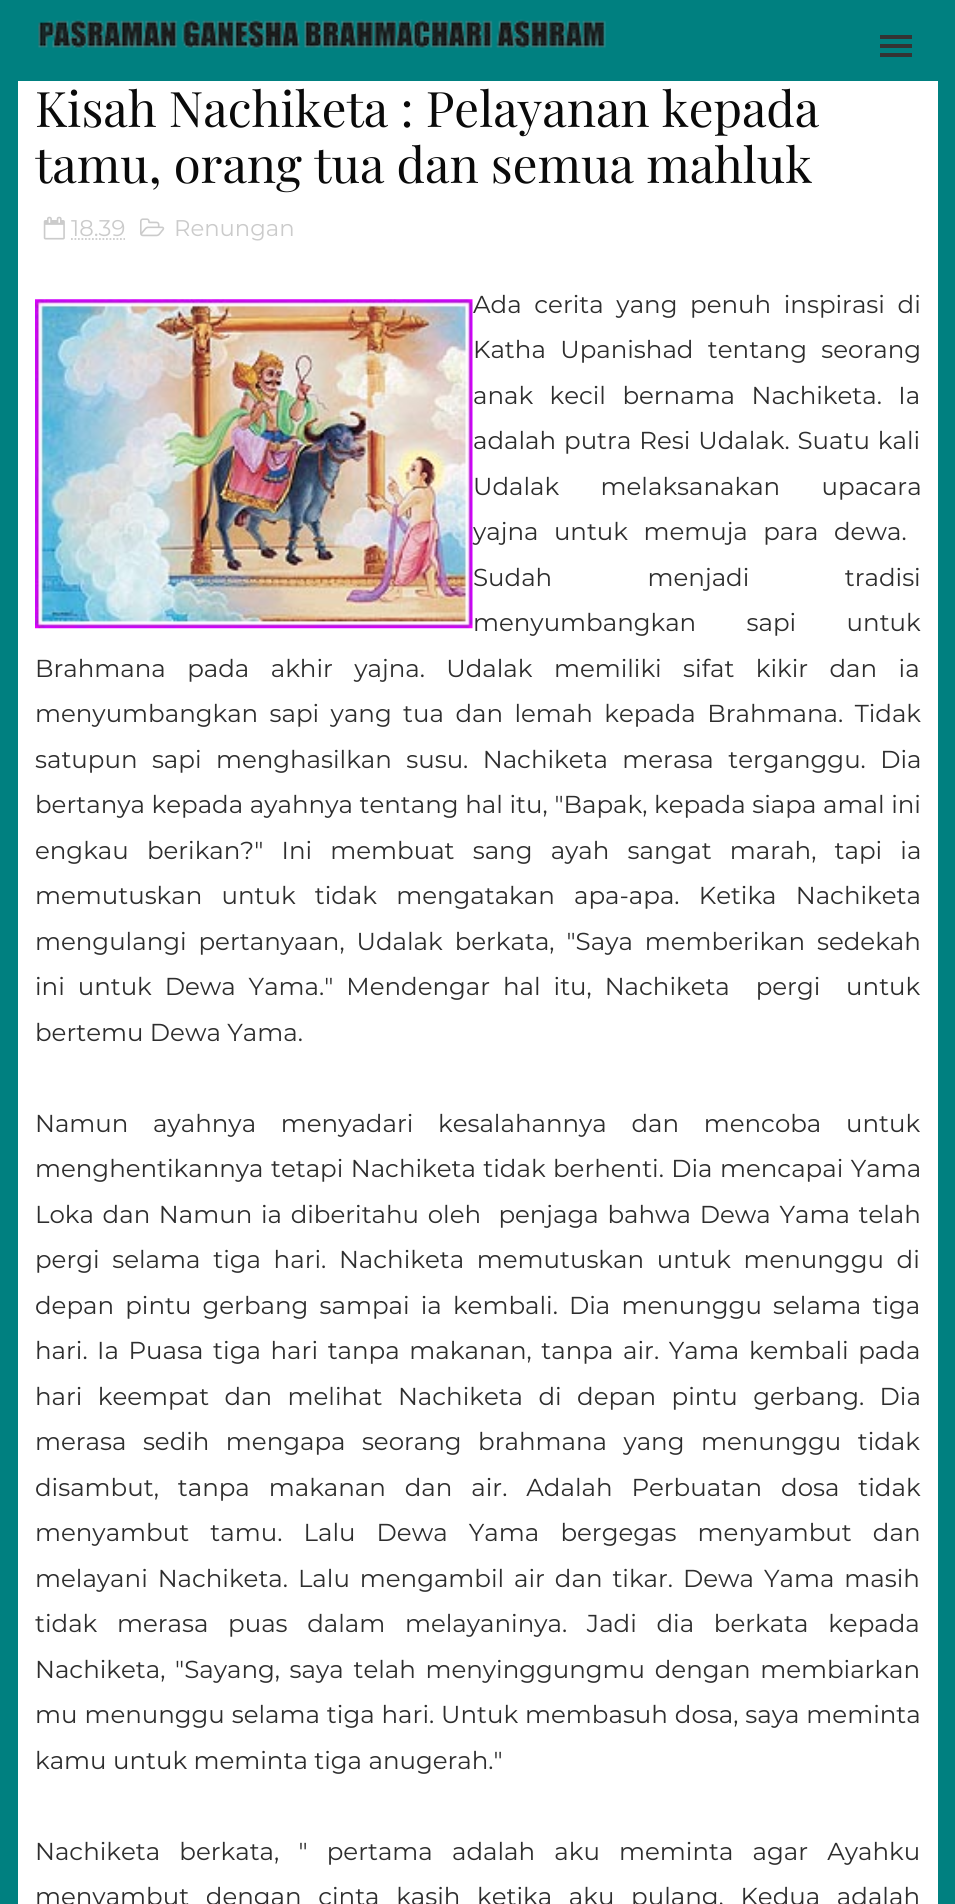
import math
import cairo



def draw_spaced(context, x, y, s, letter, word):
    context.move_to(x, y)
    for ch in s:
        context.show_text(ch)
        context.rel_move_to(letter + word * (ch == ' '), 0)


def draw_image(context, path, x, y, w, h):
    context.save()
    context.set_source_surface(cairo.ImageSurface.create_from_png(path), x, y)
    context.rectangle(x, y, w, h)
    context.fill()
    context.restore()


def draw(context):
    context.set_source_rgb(0, 128 / 255, 128 / 255)
    context.paint()
    draw_image(context, "images/1.png", 38, 19, 568, 30)
    context.set_source_rgb(52 / 255, 52 / 255, 52 / 255)
    context.rectangle(880, 35, 32, 4)
    context.fill()
    context.rectangle(880, 44, 32, 4)
    context.fill()
    context.rectangle(880, 53, 32, 4)
    context.fill()
    context.set_source_rgb(1, 1, 1)
    context.rectangle(18, 81, 920, 1823)
    context.fill()
    draw_image(context, "images/2.png", 43, 216, 22, 24)
    context.new_path()
    context.move_to(71, 239)
    context.line_to(125, 239)
    context.set_source_rgb(203 / 255, 203 / 255, 203 / 255)
    context.set_line_width(1.8)
    context.set_dash([1.75, 1.75])
    context.stroke()
    draw_image(context, "images/3.png", 140, 218, 25, 19)
    context.select_font_face("Playfair Display")
    context.set_font_size(49)
    context.set_source_rgb(10 / 255, 10 / 255, 10 / 255)
    context.move_to(35, 127)
    context.show_text("Kisah Nachiketa : Pelayanan kepada")
    context.move_to(35, 183)
    context.show_text("tamu, orang tua dan semua mahluk")
    context.select_font_face("Montserrat")
    context.set_font_size(22.75)
    context.set_source_rgb(203 / 255, 203 / 255, 203 / 255)
    context.move_to(71, 236)
    context.show_text("18.39")
    context.move_to(174, 236)
    context.show_text("Renungan")
    context.set_font_size(24.5)
    context.set_source_rgb(46 / 255, 46 / 255, 46 / 255)
    draw_spaced(context, 473, 313, "Ada cerita yang penuh inspirasi di", 0, 6.25)
    draw_spaced(context, 473, 358, "Katha Upanishad tentang seorang", 0, 8)
    draw_spaced(context, 473, 404, "anak kecil bernama Nachiketa. Ia", 0, 10)
    draw_spaced(context, 473, 449, "adalah putra Resi Udalak. Suatu kali", 0, 1.5)
    draw_spaced(context, 473, 495, "Udalak melaksanakan upacara", 0, 35)
    draw_spaced(context, 473, 540, "yajna untuk memuja para dewa.", 0, 9)
    draw_image(context, "images/4.png", 35, 299, 438, 330)
    draw_spaced(context, 473, 586, "Sudah menjadi tradisi", 0, 89)
    draw_spaced(context, 473, 631, "menyumbangkan sapi untuk", 0, 44)
    draw_spaced(context, 35, 677, "Brahmana pada akhir yajna. Udalak memiliki sifat kikir dan ia", 0, 15)
    draw_spaced(context, 35, 722, "menyumbangkan sapi yang tua dan lemah kepada Brahmana. Tidak", 0, 5)
    draw_spaced(context, 35, 768, "satupun sapi menghasilkan susu. Nachiketa merasa terganggu. Dia", 0, 8)
    draw_spaced(context, 35, 813, "bertanya kepada ayahnya tentang hal itu, \"Bapak, kepada siapa amal ini", 0, 0.25)
    draw_spaced(context, 35, 859, "engkau berikan?\" Ini membuat sang ayah sangat marah, tapi ia", 0, 11.75)
    draw_spaced(context, 35, 904, "memutuskan untuk tidak mengatakan apa-apa. Ketika Nachiketa", 0, 12.75)
    draw_spaced(context, 35, 950, "mengulangi pertanyaan, Udalak berkata, \"Saya memberikan sedekah", 0, 5.5)
    draw_spaced(context, 35, 995, "ini untuk Dewa Yama.\" Mendengar hal itu, Nachiketa  pergi  untuk", 0, 6.5)
    context.move_to(35, 1041)
    context.show_text("bertemu Dewa Yama.")
    draw_spaced(context, 35, 1132, "Namun ayahnya menyadari kesalahannya dan mencoba untuk", 0, 18.25)
    draw_spaced(context, 35, 1177, "menghentikannya tetapi Nachiketa tidak berhenti. Dia mencapai Yama", 0, 1)
    draw_spaced(context, 35, 1223, "Loka dan Namun ia diberitahu oleh  penjaga bahwa Dewa Yama telah", 0, 2.25)
    draw_spaced(context, 35, 1268, "pergi selama tiga hari. Nachiketa memutuskan untuk menunggu di", 0, 6.25)
    draw_spaced(context, 35, 1314, "depan pintu gerbang sampai ia kembali. Dia menunggu selama tiga", 0, 4.75)
    context.move_to(35, 1359)
    context.show_text("hari.")
    draw_spaced(context, 97, 1359, "Ia Puasa tiga hari tanpa makanan, tanpa air. Yama kembali pada", 0, 3.25)
    draw_spaced(context, 35, 1405, "hari keempat dan melihat Nachiketa di depan pintu gerbang. Dia", 0, 9)
    draw_spaced(context, 35, 1450, "merasa sedih mengapa seorang brahmana yang menunggu tidak", 0, 10)
    draw_spaced(context, 35, 1496, "disambut, tanpa makanan dan air. Adalah Perbuatan dosa tidak", 0, 12.5)
    draw_spaced(context, 35, 1541, "menyambut tamu. Lalu Dewa Yama bergegas menyambut dan", 0, 14.75)
    draw_spaced(context, 35, 1587, "melayani Nachiketa. Lalu mengambil air dan tikar. Dewa Yama masih", 0, 3.5)
    draw_spaced(context, 35, 1632, "tidak merasa puas dalam melayaninya. Jadi dia berkata kepada", 0, 13.25)
    draw_spaced(context, 35, 1678, "Nachiketa, \"Sayang, saya telah menyinggungmu dengan membiarkan", 0, 3.25)
    draw_spaced(context, 35, 1723, "mu menunggu selama tiga hari. Untuk membasuh dosa, saya meminta", 0, 0.5)
    context.move_to(35, 1769)
    context.show_text("kamu untuk meminta tiga anugerah.\"")
    draw_spaced(context, 35, 1860, "Nachiketa berkata, \" pertama adalah aku meminta agar Ayahku", 0, 12.75)
    draw_spaced(context, 35, 1905, "menyambut dengan cinta kasih ketika aku pulang. Kedua adalah", 0, 10.25)


surface = cairo.ImageSurface(cairo.Format.RGB24, 955, 1904)
context = cairo.Context(surface)
options = cairo.FontOptions()
options.set_hint_metrics(cairo.HintMetrics.OFF)
options.set_hint_style(cairo.HintStyle.NONE)
context.set_font_options(options)
context.set_miter_limit(4)
draw(context)
surface.write_to_png("out.png")
